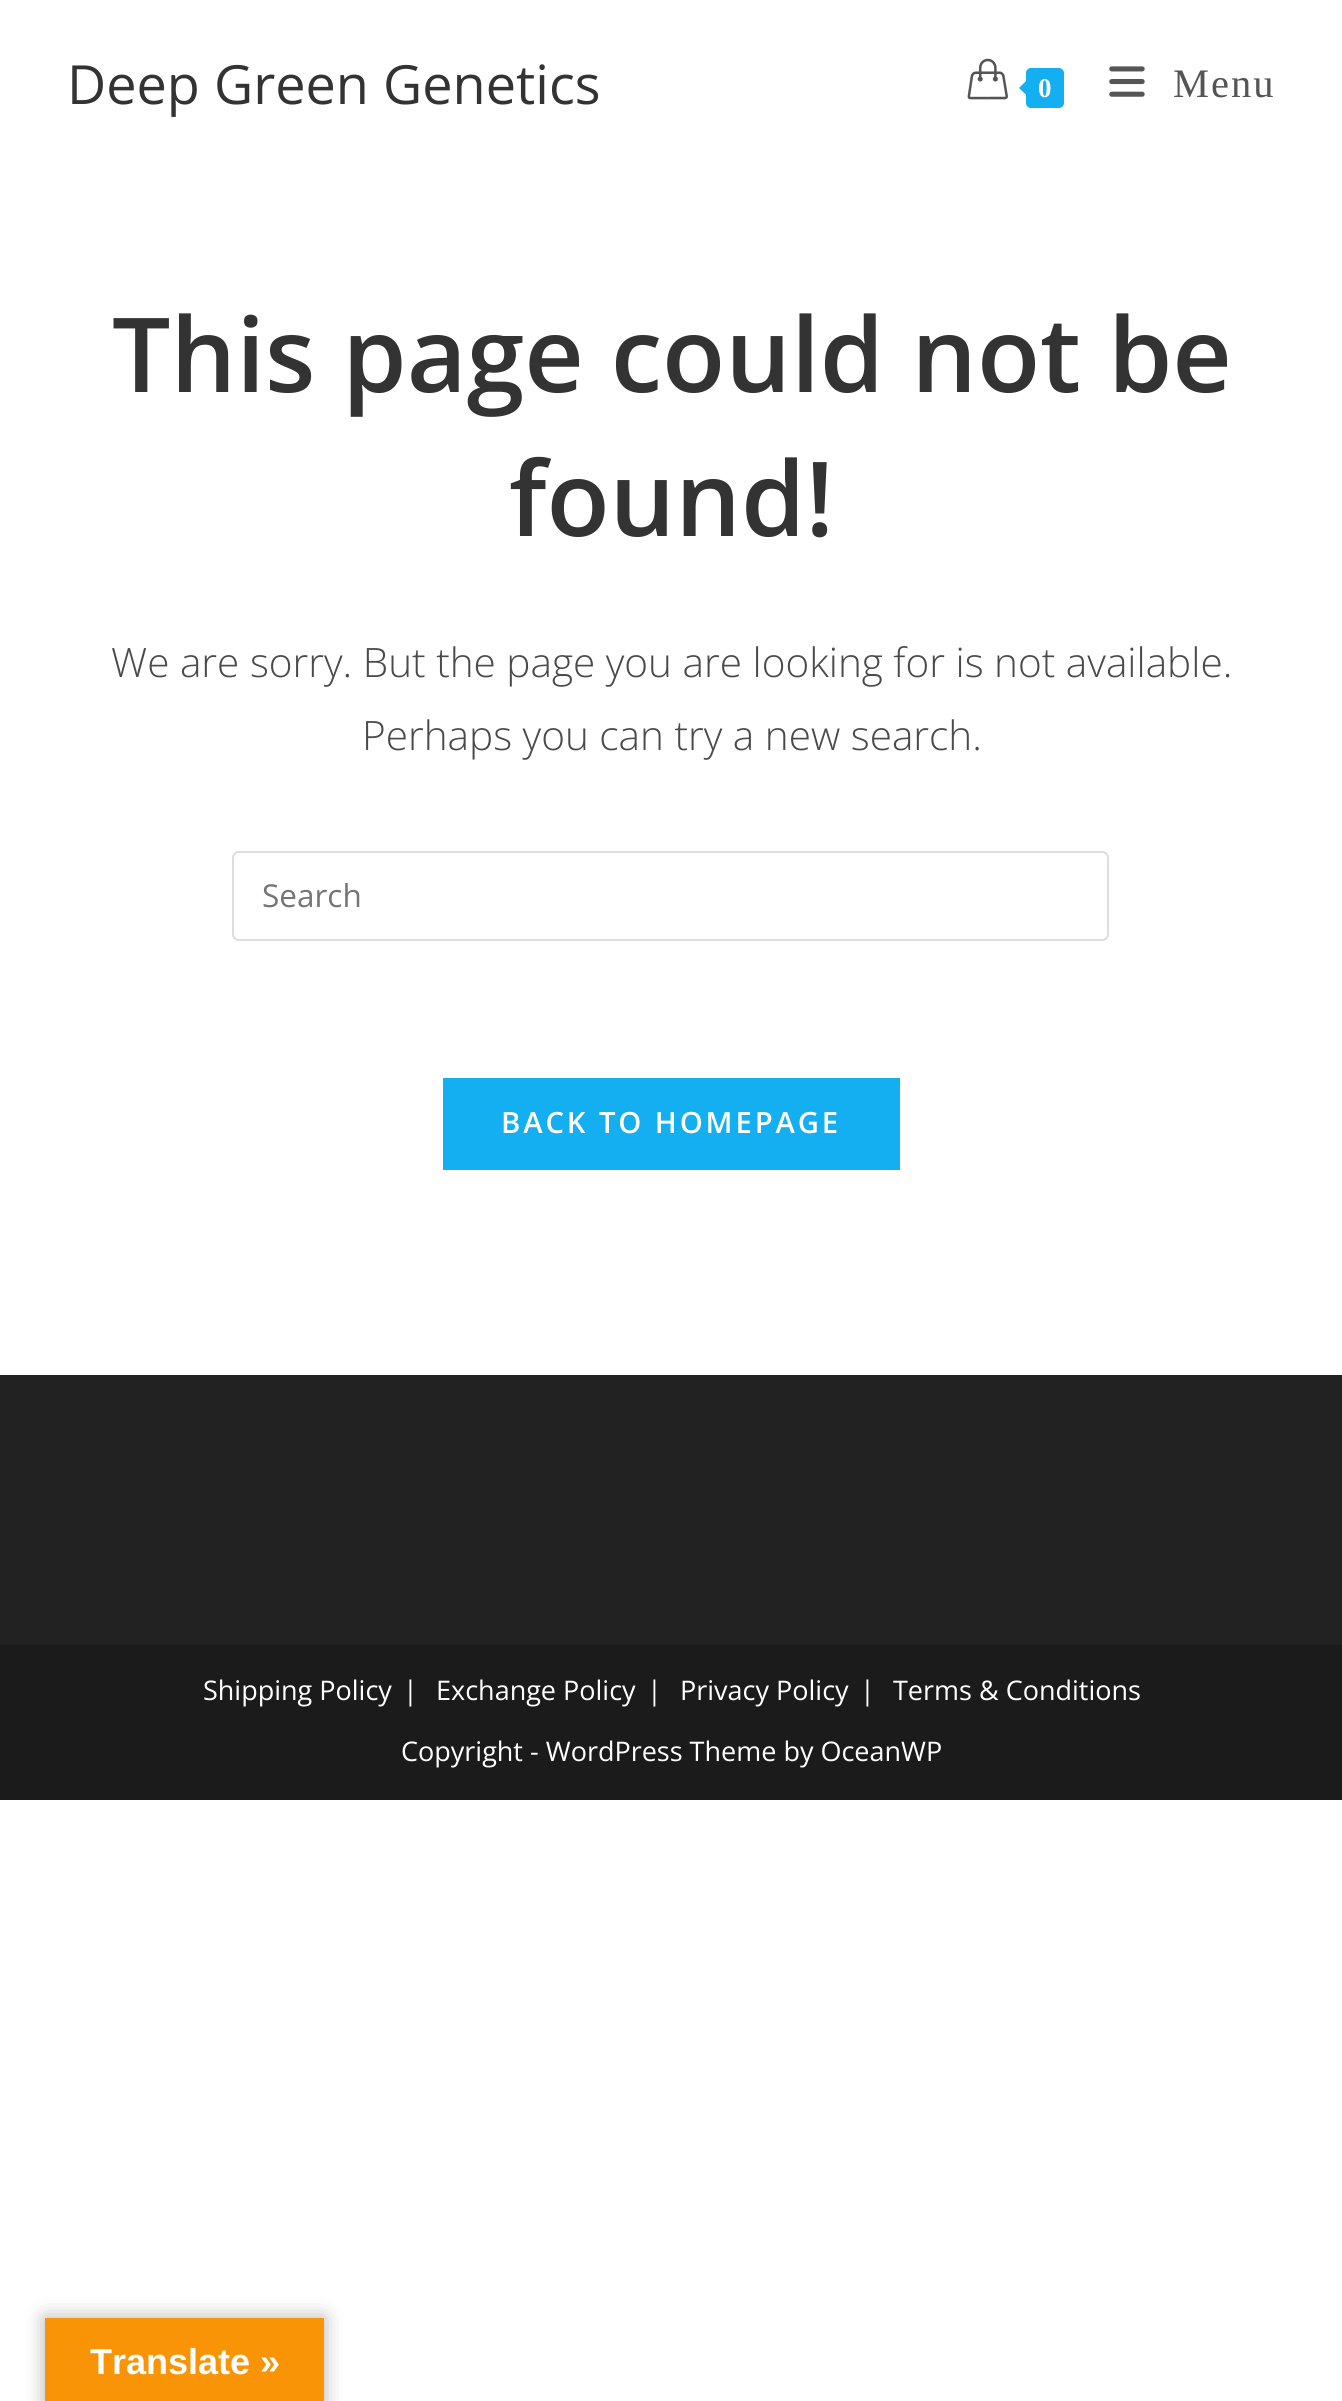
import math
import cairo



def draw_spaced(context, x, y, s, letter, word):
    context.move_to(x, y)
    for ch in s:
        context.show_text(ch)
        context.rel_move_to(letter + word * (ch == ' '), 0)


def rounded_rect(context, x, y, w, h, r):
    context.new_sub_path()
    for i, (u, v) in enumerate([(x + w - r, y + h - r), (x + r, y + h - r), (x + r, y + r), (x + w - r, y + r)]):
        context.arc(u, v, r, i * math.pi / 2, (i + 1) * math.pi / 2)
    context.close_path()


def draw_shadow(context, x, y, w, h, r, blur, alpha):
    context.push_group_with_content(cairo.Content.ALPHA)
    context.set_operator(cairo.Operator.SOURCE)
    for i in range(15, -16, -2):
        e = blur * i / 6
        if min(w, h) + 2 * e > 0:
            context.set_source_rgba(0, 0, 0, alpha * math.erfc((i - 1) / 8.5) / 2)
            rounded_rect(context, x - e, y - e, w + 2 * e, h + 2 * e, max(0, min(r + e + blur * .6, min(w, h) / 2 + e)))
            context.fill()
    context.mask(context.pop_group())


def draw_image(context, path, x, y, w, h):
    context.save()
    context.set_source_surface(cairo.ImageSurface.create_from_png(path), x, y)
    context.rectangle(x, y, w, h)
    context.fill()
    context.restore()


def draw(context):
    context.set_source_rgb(1, 1, 1)
    context.paint()
    draw_image(context, "images/1.png", 967, 58, 41, 42)
    context.set_source_rgb(19 / 255, 175 / 255, 240 / 255)
    rounded_rect(context, 1026, 68, 38, 40, 5)
    context.fill()
    context.new_path()
    context.move_to(1030.5, 76.5)
    context.line_to(1030.5, 99)
    context.line_to(1019, 88)
    context.close_path()
    context.fill()
    draw_image(context, "images/2.png", 1109, 66, 36, 31)
    rounded_rect(context, 233, 852, 875, 88, 6)
    context.set_source_rgb(221 / 255, 221 / 255, 221 / 255)
    context.stroke()
    context.set_source_rgb(19 / 255, 175 / 255, 240 / 255)
    context.rectangle(443, 1078, 457, 92)
    context.fill()
    context.set_source_rgb(34 / 255, 34 / 255, 34 / 255)
    context.rectangle(0, 1375, 1342, 270)
    context.fill()
    context.set_source_rgb(27 / 255, 27 / 255, 27 / 255)
    context.rectangle(0, 1645, 1342, 155)
    context.fill()
    context.set_source_rgb(0, 0, 0)
    draw_shadow(context, 45, 2318, 279, 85, 0, 10, 0.3)
    context.set_source_rgb(248 / 255, 148 / 255, 6 / 255)
    context.rectangle(45, 2318, 279, 83)
    context.fill()
    context.select_font_face("Open Sans")
    context.set_font_size(54)
    context.set_source_rgb(51 / 255, 51 / 255, 51 / 255)
    context.move_to(67, 104)
    context.show_text("Deep Green Genetics")
    context.select_font_face("Liberation Serif", cairo.FontSlant.NORMAL, cairo.FontWeight.BOLD)
    context.set_font_size(27)
    context.set_source_rgb(1, 1, 1)
    draw_spaced(context, 1038, 97, "0", 2, 0)
    context.select_font_face("Liberation Serif")
    context.set_font_size(40.5)
    context.set_source_rgb(85 / 255, 85 / 255, 85 / 255)
    draw_spaced(context, 1173, 97, "Menu", 2, 0)
    context.select_font_face("Open Sans SemiBold")
    context.set_font_size(103.5)
    context.set_source_rgb(51 / 255, 51 / 255, 51 / 255)
    context.move_to(112, 392)
    context.show_text("This page could not be")
    context.move_to(509, 536)
    context.show_text("found!")
    context.select_font_face("Open Sans Light")
    context.set_font_size(40.5)
    context.set_source_rgb(74 / 255, 74 / 255, 74 / 255)
    context.move_to(111, 677)
    context.show_text("We are sorry. But the page you are looking for is not available.")
    context.move_to(362, 750)
    context.show_text("Perhaps you can try a new search.")
    context.select_font_face("Open Sans")
    context.set_font_size(31.5)
    context.set_source_rgb(117 / 255, 117 / 255, 117 / 255)
    context.move_to(262, 907)
    context.show_text("Search")
    context.select_font_face("Open Sans SemiBold")
    context.set_font_size(29.25)
    context.set_source_rgb(1, 1, 1)
    draw_spaced(context, 501, 1133, "BACK TO HOMEPAGE", 2.9, 0)
    context.select_font_face("Open Sans")
    context.set_font_size(27)
    context.move_to(203, 1700)
    context.show_text("Shipping Policy")
    context.move_to(403, 1700)
    context.show_text("|")
    context.move_to(436, 1700)
    context.show_text("Exchange Policy")
    context.move_to(647, 1700)
    context.show_text("|")
    context.move_to(680, 1700)
    context.show_text("Privacy Policy")
    context.move_to(860, 1700)
    context.show_text("|")
    context.move_to(893, 1700)
    context.show_text("Terms & Conditions")
    context.move_to(401, 1761)
    context.show_text("Copyright - WordPress Theme by OceanWP")
    context.select_font_face("Liberation Sans", cairo.FontSlant.NORMAL, cairo.FontWeight.BOLD)
    context.set_font_size(36)
    context.move_to(90, 2374)
    context.show_text("Translate »")


surface = cairo.ImageSurface(cairo.Format.RGB24, 1342, 2401)
context = cairo.Context(surface)
options = cairo.FontOptions()
options.set_hint_metrics(cairo.HintMetrics.OFF)
options.set_hint_style(cairo.HintStyle.NONE)
context.set_font_options(options)
context.set_miter_limit(4)
draw(context)
surface.write_to_png("out.png")
